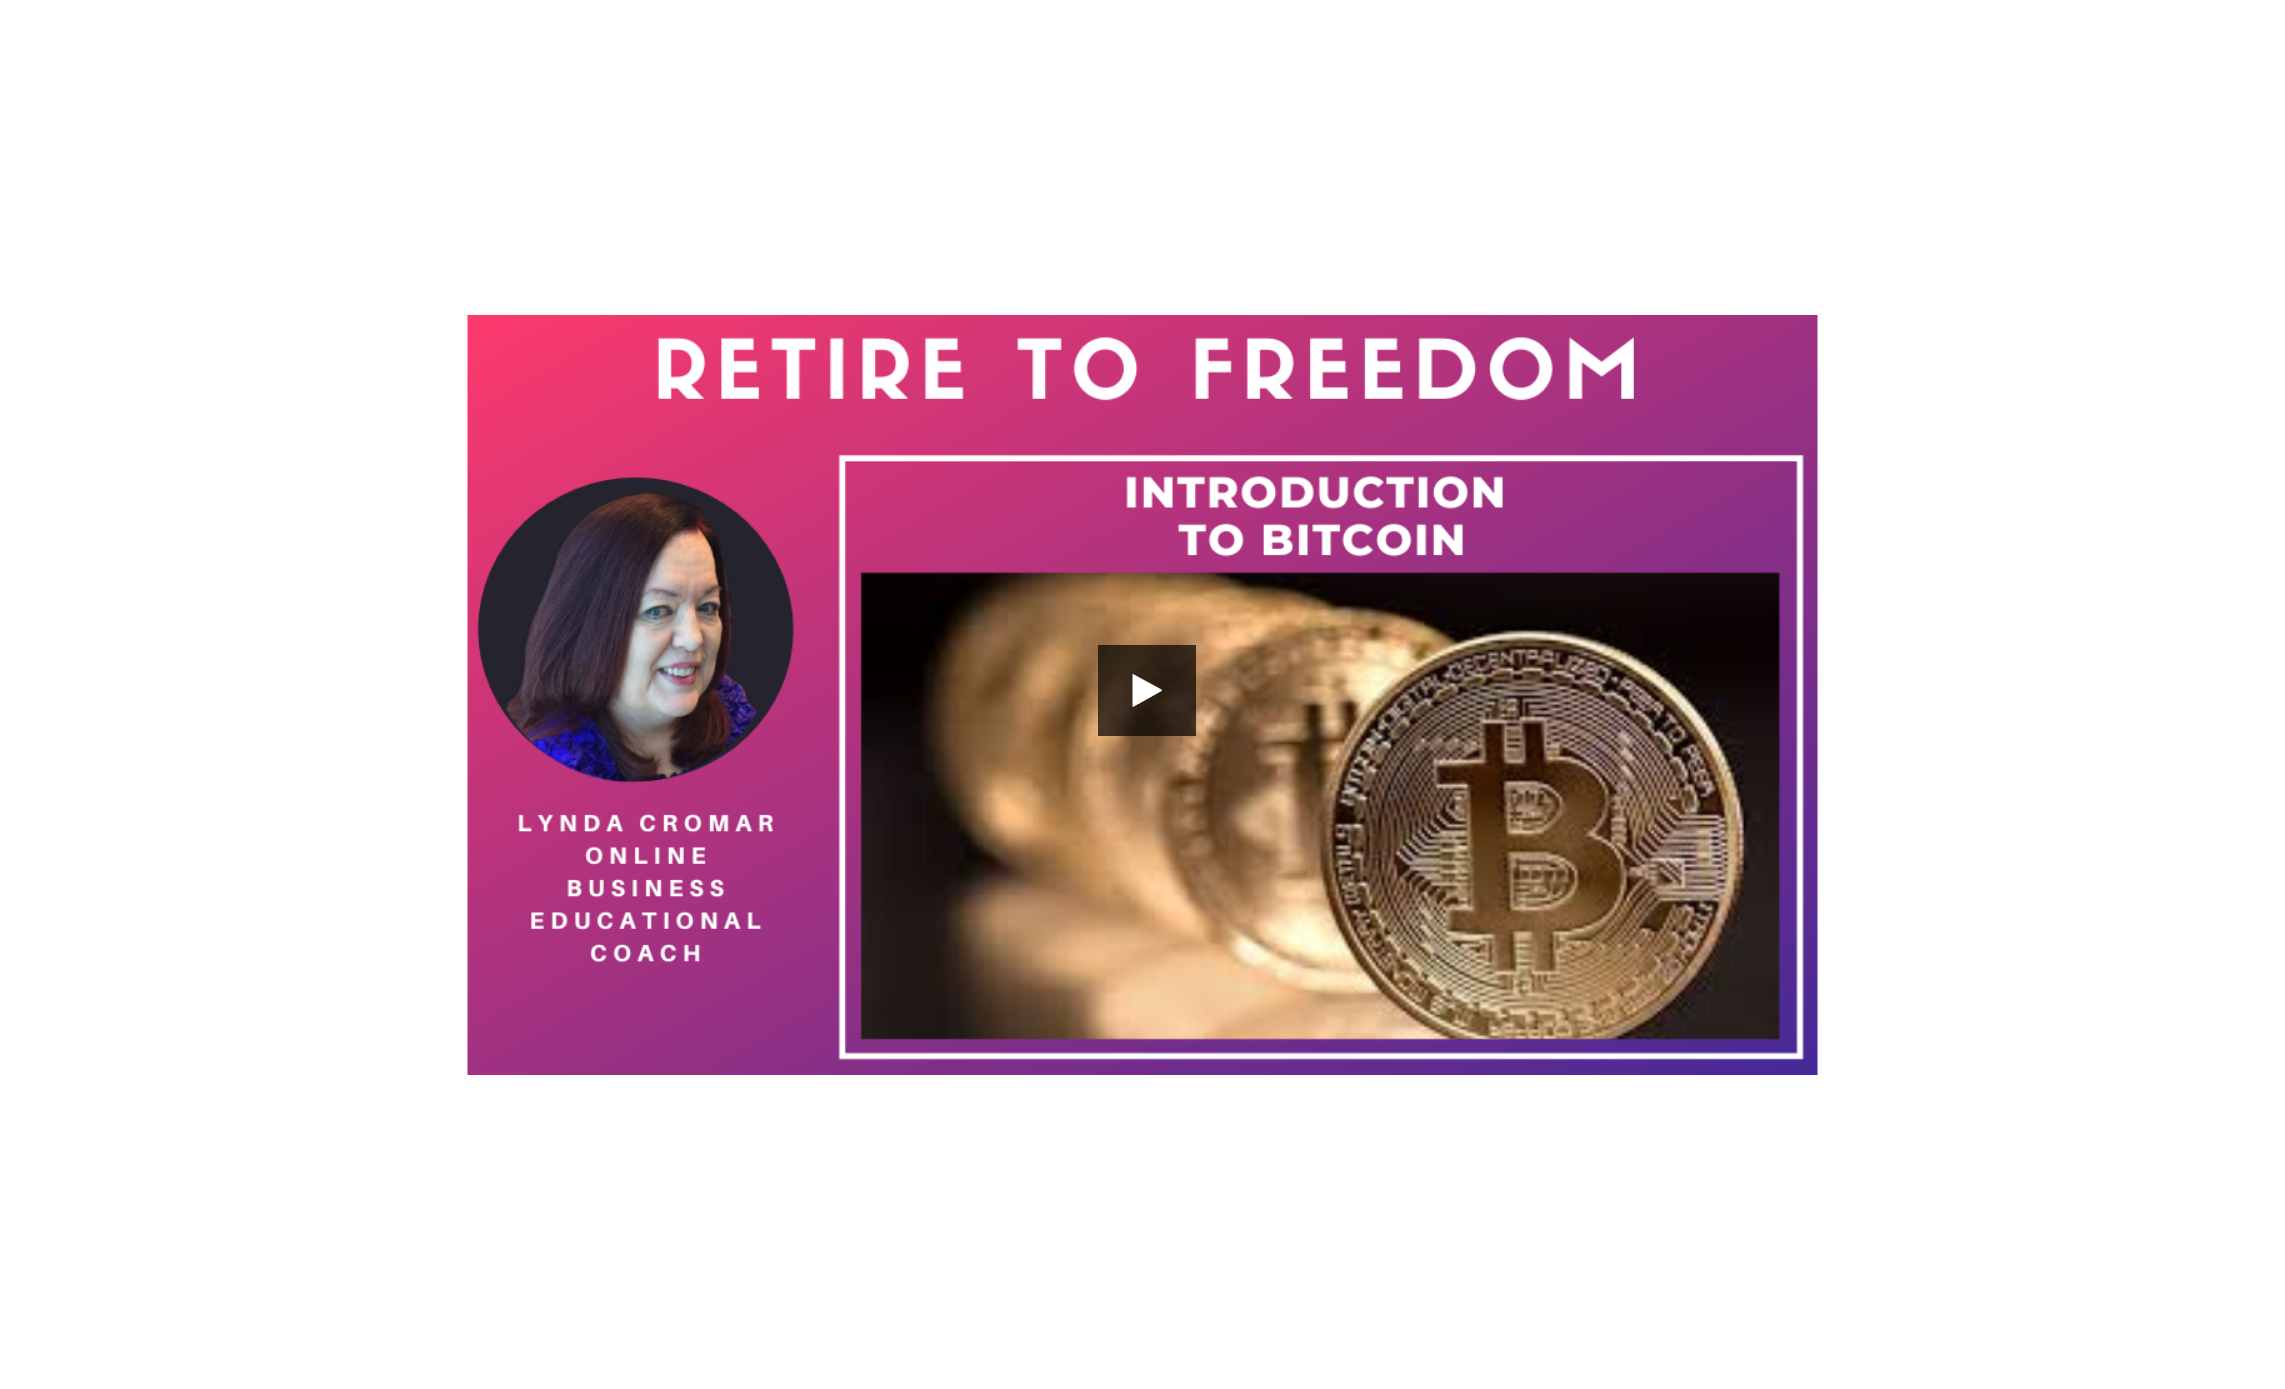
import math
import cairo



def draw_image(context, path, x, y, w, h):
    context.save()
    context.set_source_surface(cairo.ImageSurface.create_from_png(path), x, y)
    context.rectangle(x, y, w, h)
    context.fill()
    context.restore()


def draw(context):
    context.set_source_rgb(1, 1, 1)
    context.paint()
    draw_image(context, "images/1.png", 467, 315, 1351, 760)
    context.set_source_rgba(0, 0, 0, 0.7)
    context.rectangle(1098, 645, 98, 91)
    context.fill()
    context.set_source_rgb(1, 1, 1)
    context.new_path()
    context.move_to(1161.5, 691)
    context.line_to(1138.5, 704)
    context.curve_to(1137.5, 704, 1133.5, 707.5, 1132.5, 706.5)
    context.line_to(1132.5, 674.5)
    context.line_to(1133, 674)
    context.line_to(1161.5, 689.5)
    context.line_to(1162, 690.5)
    context.close_path()
    context.fill()


surface = cairo.ImageSurface(cairo.Format.RGB24, 2285, 1389)
context = cairo.Context(surface)
options = cairo.FontOptions()
options.set_hint_metrics(cairo.HintMetrics.OFF)
options.set_hint_style(cairo.HintStyle.NONE)
context.set_font_options(options)
context.set_miter_limit(4)
draw(context)
surface.write_to_png("out.png")
